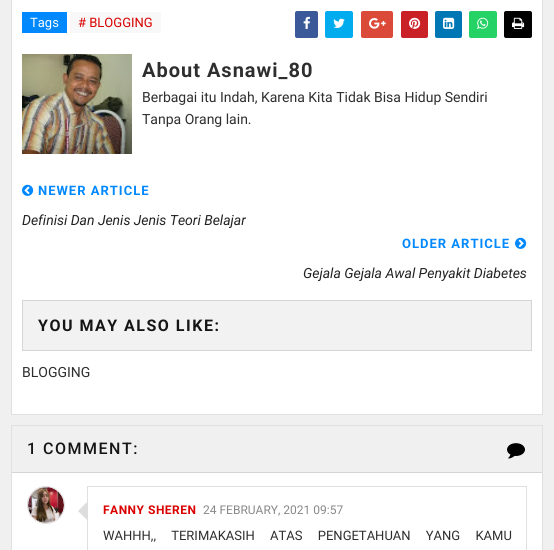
import math
import cairo



def draw_spaced(context, x, y, s, letter, word):
    context.move_to(x, y)
    for ch in s:
        context.show_text(ch)
        context.rel_move_to(letter + word * (ch == ' '), 0)


def rounded_rect(context, x, y, w, h, r):
    context.new_sub_path()
    for i, (u, v) in enumerate([(x + w - r, y + h - r), (x + r, y + h - r), (x + r, y + r), (x + w - r, y + r)]):
        context.arc(u, v, r, i * math.pi / 2, (i + 1) * math.pi / 2)
    context.close_path()


def draw_image(context, path, x, y, w, h):
    context.save()
    context.set_source_surface(cairo.ImageSurface.create_from_png(path), x, y)
    context.rectangle(x, y, w, h)
    context.fill()
    context.restore()


def draw(context):
    context.set_source_rgb(240 / 255, 240 / 255, 240 / 255)
    context.paint()
    context.set_source_rgb(1, 1, 1)
    context.rectangle(11.5, -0.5, 531, 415)
    context.fill_preserve()
    context.set_source_rgb(224 / 255, 224 / 255, 224 / 255)
    context.set_line_width(1)
    context.stroke()
    context.set_source_rgb(0, 136 / 255, 1)
    context.rectangle(22, 12, 45, 21)
    context.fill()
    context.set_source_rgb(248 / 255, 248 / 255, 248 / 255)
    context.rectangle(70, 12, 91, 21)
    context.fill()
    context.set_source_rgb(59 / 255, 89 / 255, 152 / 255)
    rounded_rect(context, 295, 11, 23, 27, 2)
    context.fill()
    draw_image(context, "images/1.png", 303, 16, 7, 13)
    context.set_source_rgb(0, 172 / 255, 238 / 255)
    rounded_rect(context, 325, 11, 28, 27, 2)
    context.fill()
    draw_image(context, "images/2.png", 333, 18, 12, 10)
    context.set_source_rgb(219 / 255, 74 / 255, 57 / 255)
    rounded_rect(context, 361, 11, 32, 27, 2)
    context.fill()
    draw_image(context, "images/3.png", 369, 18, 17, 11)
    context.set_source_rgb(202 / 255, 33 / 255, 39 / 255)
    rounded_rect(context, 401, 11, 27, 27, 2)
    context.fill()
    draw_image(context, "images/4.png", 409, 17, 12, 12)
    context.set_source_rgb(0, 119 / 255, 181 / 255)
    rounded_rect(context, 435, 11, 27, 27, 2)
    context.fill()
    draw_image(context, "images/5.png", 443, 17, 12, 12)
    context.set_source_rgb(37 / 255, 210 / 255, 102 / 255)
    rounded_rect(context, 469, 11, 28, 27, 2)
    context.fill()
    draw_image(context, "images/6.png", 477, 17, 12, 12)
    context.set_source_rgb(1 / 255, 1 / 255, 1 / 255)
    rounded_rect(context, 504, 11, 28, 27, 2)
    context.fill()
    draw_image(context, "images/7.png", 512, 17, 13, 12)
    draw_image(context, "images/8.png", 22, 54, 110, 100)
    draw_image(context, "images/9.png", 22, 184, 12, 12)
    draw_image(context, "images/10.png", 515, 237, 12, 12)
    context.set_source_rgb(242 / 255, 242 / 255, 242 / 255)
    context.rectangle(22.5, 300.5, 509, 50)
    context.fill_preserve()
    context.set_source_rgb(213 / 255, 213 / 255, 213 / 255)
    context.stroke()
    context.set_source_rgb(1, 1, 1)
    context.rectangle(12, 473, 530, 77)
    context.fill()
    context.rectangle(11.5, 425.5, 531, 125)
    context.set_source_rgb(224 / 255, 224 / 255, 224 / 255)
    context.stroke()
    context.set_source_rgb(213 / 255, 213 / 255, 213 / 255)
    context.rectangle(12, 472, 530, 1)
    context.fill()
    draw_image(context, "images/11.png", 507, 443, 18, 16)
    context.arc(46, 505, 18.5, 0, 2 * math.pi)
    context.set_source_rgb(221 / 255, 221 / 255, 221 / 255)
    context.stroke()
    draw_image(context, "images/12.png", 28, 487, 36, 36)
    context.rectangle(87.5, 486.5, 439, 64)
    context.set_source_rgb(224 / 255, 224 / 255, 224 / 255)
    context.stroke()
    context.set_source_rgb(221 / 255, 221 / 255, 221 / 255)
    context.new_path()
    context.move_to(88, 501)
    context.line_to(88, 521)
    context.line_to(78, 511)
    context.close_path()
    context.fill()
    context.select_font_face("Roboto")
    context.set_font_size(13)
    context.set_source_rgb(1, 1, 1)
    context.move_to(30, 27)
    context.show_text("Tags")
    context.set_source_rgb(218 / 255, 0, 0)
    context.move_to(78, 27)
    context.show_text("# BLOGGING")
    context.select_font_face("Roboto", cairo.FontSlant.NORMAL, cairo.FontWeight.BOLD)
    context.set_font_size(20)
    context.set_source_rgb(46 / 255, 46 / 255, 46 / 255)
    draw_spaced(context, 142, 77, "About Asnawi_80", 1, 0)
    context.select_font_face("Roboto")
    context.set_font_size(14)
    context.move_to(142, 102)
    context.show_text("Berbagai itu Indah, Karena Kita Tidak Bisa Hidup Sendiri")
    context.move_to(142, 124)
    context.show_text("Tanpa Orang lain.")
    context.select_font_face("Roboto", cairo.FontSlant.NORMAL, cairo.FontWeight.BOLD)
    context.set_font_size(13)
    context.set_source_rgb(0, 136 / 255, 1)
    draw_spaced(context, 38, 195, "NEWER ARTICLE", 1, 0)
    context.select_font_face("Roboto", cairo.FontSlant.ITALIC)
    context.set_font_size(14)
    context.set_source_rgb(34 / 255, 34 / 255, 34 / 255)
    context.move_to(22, 225)
    context.show_text("Definisi Dan Jenis Jenis Teori Belajar")
    context.select_font_face("Roboto", cairo.FontSlant.NORMAL, cairo.FontWeight.BOLD)
    context.set_font_size(13)
    context.set_source_rgb(0, 136 / 255, 1)
    draw_spaced(context, 402, 248, "OLDER ARTICLE", 1, 0)
    context.select_font_face("Roboto", cairo.FontSlant.ITALIC)
    context.set_font_size(14)
    context.set_source_rgb(34 / 255, 34 / 255, 34 / 255)
    context.move_to(303, 278)
    context.show_text("Gejala Gejala Awal Penyakit Diabetes")
    context.select_font_face("Roboto", cairo.FontSlant.NORMAL, cairo.FontWeight.BOLD)
    context.set_font_size(16)
    context.set_source_rgb(21 / 255, 21 / 255, 21 / 255)
    draw_spaced(context, 38, 331, "YOU MAY ALSO LIKE:", 1.5, 0)
    context.select_font_face("Roboto")
    context.set_font_size(14)
    context.set_source_rgb(46 / 255, 46 / 255, 46 / 255)
    context.move_to(22, 377)
    context.show_text("BLOGGING")
    context.select_font_face("Roboto Medium")
    context.set_font_size(16)
    context.set_source_rgb(21 / 255, 21 / 255, 21 / 255)
    draw_spaced(context, 27, 454, "1 COMMENT:", 1.5, 0)
    context.select_font_face("Roboto", cairo.FontSlant.NORMAL, cairo.FontWeight.BOLD)
    context.set_font_size(12)
    context.set_source_rgb(218 / 255, 0, 0)
    draw_spaced(context, 103, 514, "FANNY SHEREN", 0.5, 0)
    context.select_font_face("Roboto")
    context.set_source_rgb(136 / 255, 136 / 255, 136 / 255)
    context.move_to(203, 514)
    context.show_text("24 FEBRUARY, 2021 09:57")
    context.set_font_size(13)
    context.set_source_rgb(46 / 255, 46 / 255, 46 / 255)
    draw_spaced(context, 103, 540, "WAHHH,, TERIMAKASIH ATAS PENGETAHUAN YANG KAMU", 0, 12)


surface = cairo.ImageSurface(cairo.Format.RGB24, 554, 550)
context = cairo.Context(surface)
options = cairo.FontOptions()
options.set_hint_metrics(cairo.HintMetrics.OFF)
options.set_hint_style(cairo.HintStyle.NONE)
context.set_font_options(options)
context.set_miter_limit(4)
draw(context)
surface.write_to_png("out.png")
